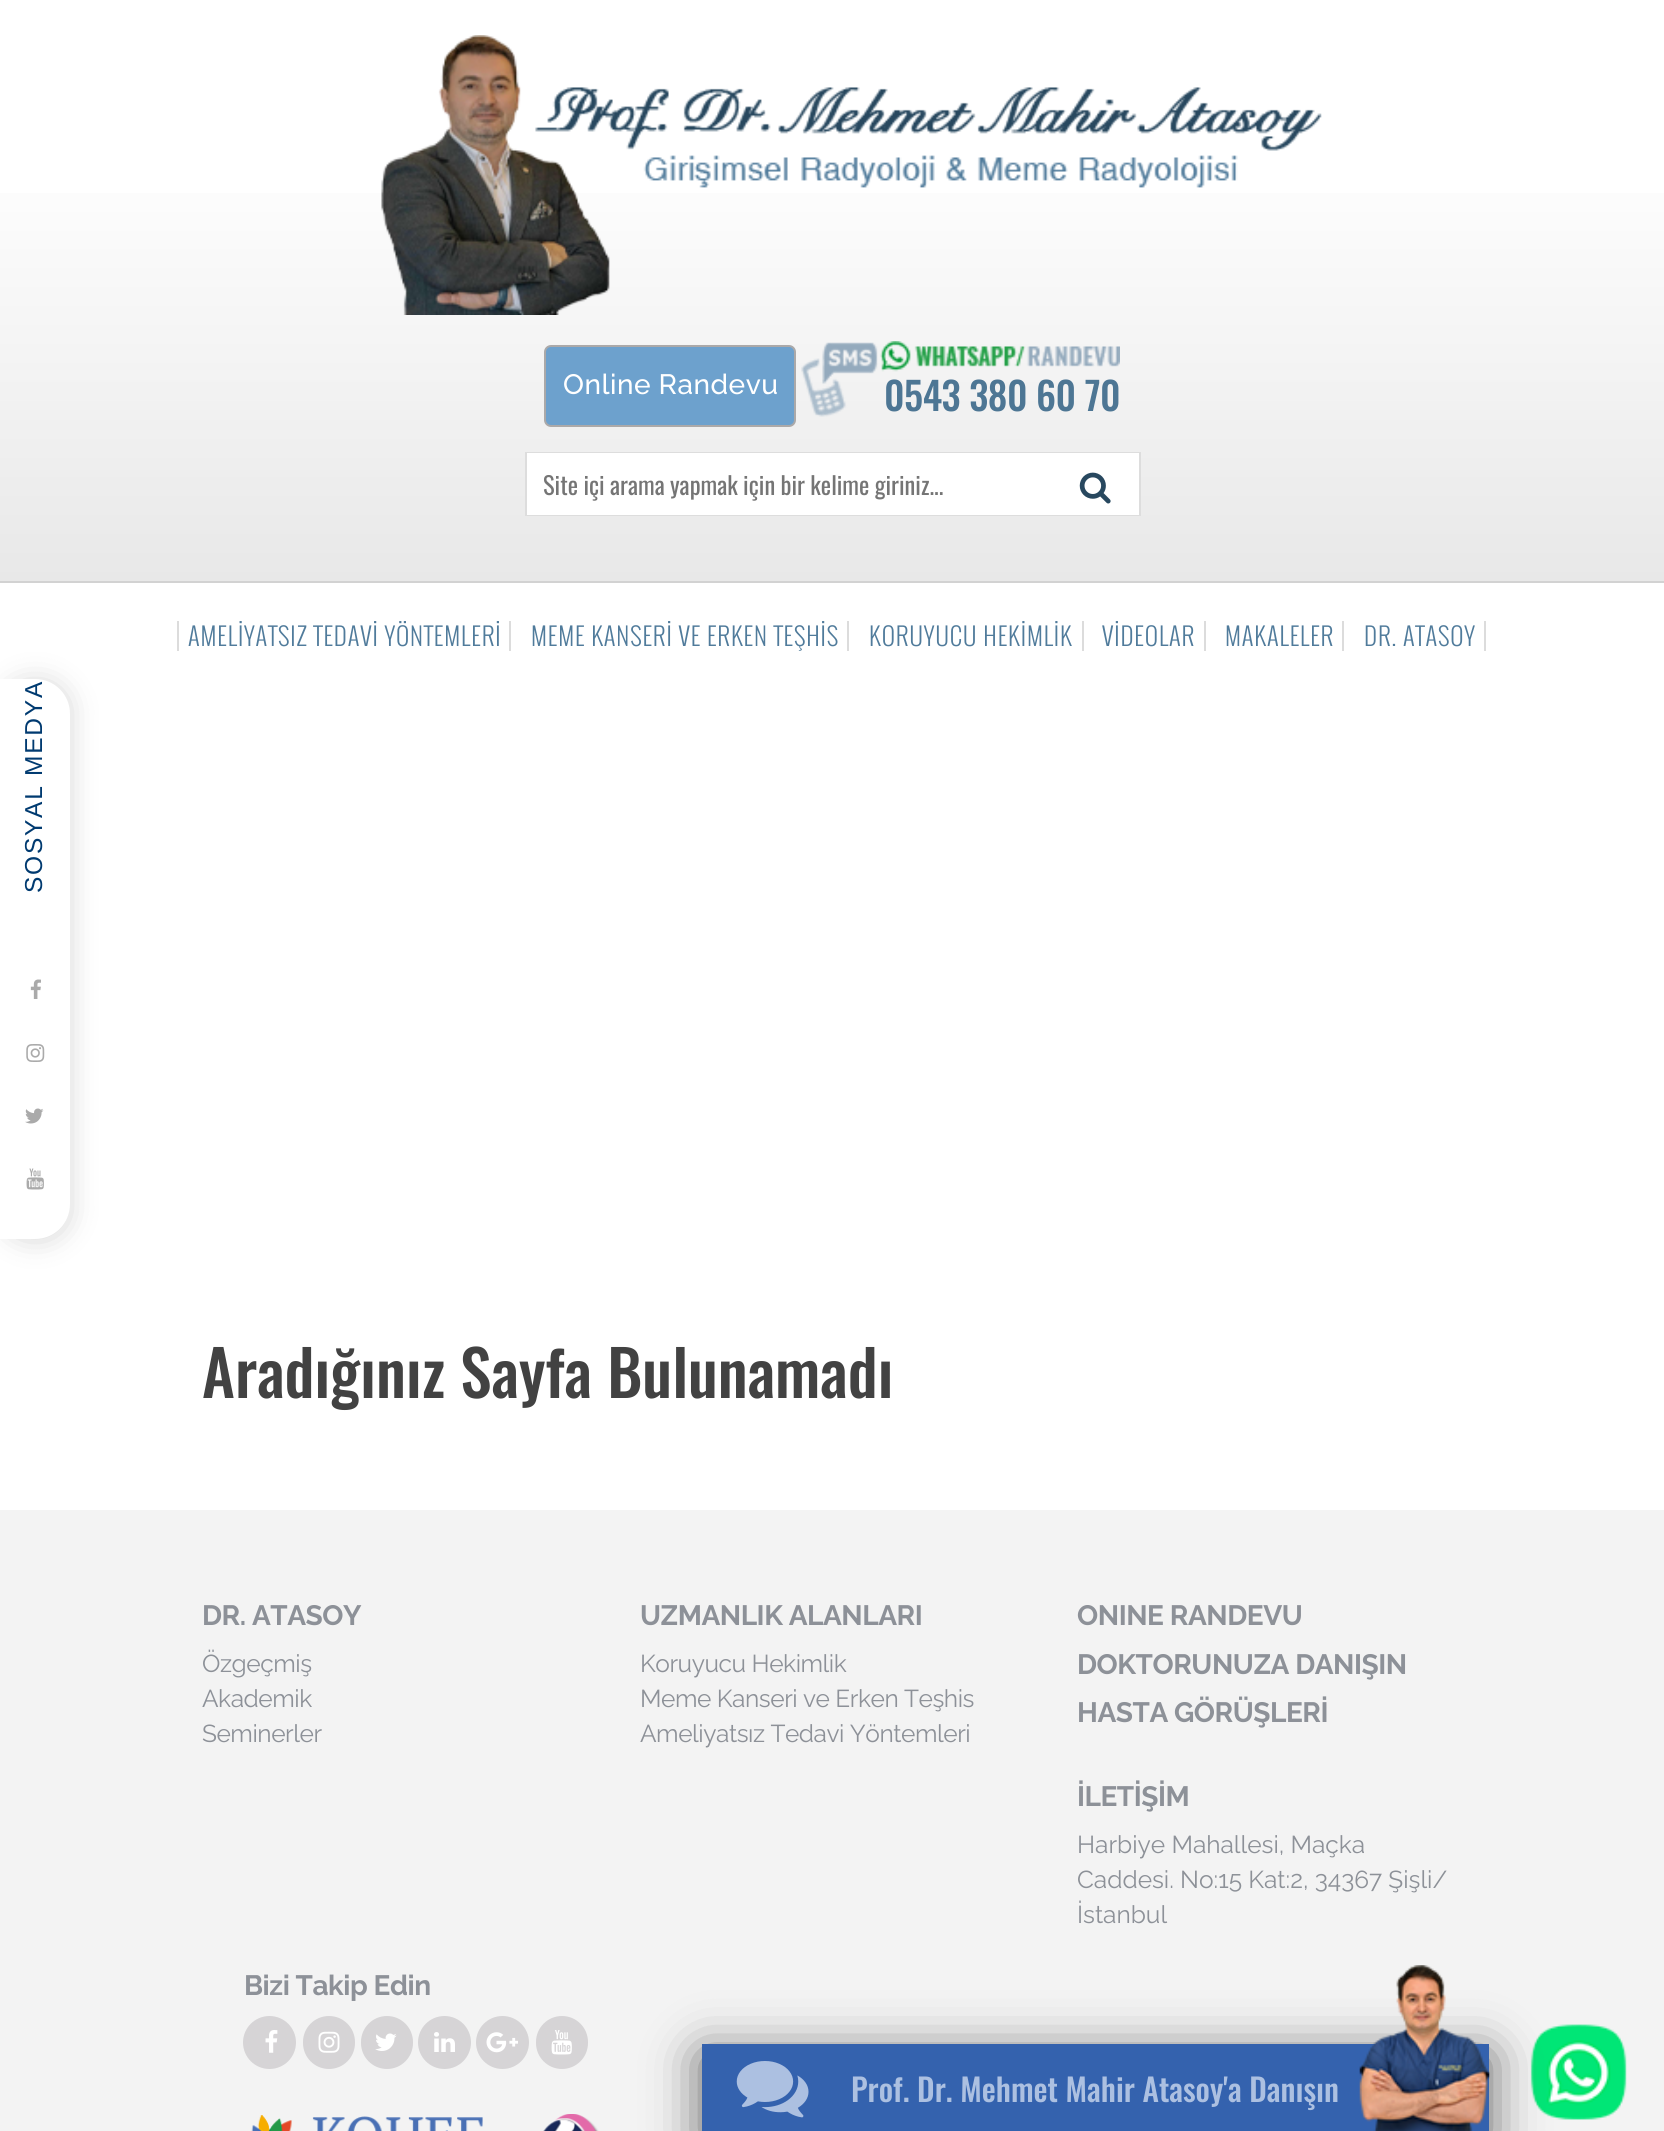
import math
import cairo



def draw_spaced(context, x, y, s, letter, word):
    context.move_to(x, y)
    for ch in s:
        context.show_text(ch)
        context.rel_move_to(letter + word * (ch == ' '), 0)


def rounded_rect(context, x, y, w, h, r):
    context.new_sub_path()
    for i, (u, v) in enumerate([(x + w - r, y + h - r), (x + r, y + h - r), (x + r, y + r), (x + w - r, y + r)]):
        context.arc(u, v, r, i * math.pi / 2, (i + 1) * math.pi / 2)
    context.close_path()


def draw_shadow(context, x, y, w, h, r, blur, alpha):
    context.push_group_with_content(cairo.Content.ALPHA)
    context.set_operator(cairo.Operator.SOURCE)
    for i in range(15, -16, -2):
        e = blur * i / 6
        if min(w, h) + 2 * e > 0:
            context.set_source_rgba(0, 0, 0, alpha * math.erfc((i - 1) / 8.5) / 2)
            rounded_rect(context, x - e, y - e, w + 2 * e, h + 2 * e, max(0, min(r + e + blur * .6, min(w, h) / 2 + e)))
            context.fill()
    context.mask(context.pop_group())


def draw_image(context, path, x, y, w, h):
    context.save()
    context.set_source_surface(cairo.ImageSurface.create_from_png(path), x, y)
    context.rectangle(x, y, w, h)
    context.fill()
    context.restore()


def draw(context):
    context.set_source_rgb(1, 1, 1)
    context.paint()
    gradient = cairo.LinearGradient(832, 0, 832, 581)
    gradient.add_color_stop_rgba(0, 1, 1, 1, 1)
    gradient.add_color_stop_rgba(0.25, 1, 1, 1, 1)
    gradient.add_color_stop_rgba(1, 232 / 255, 232 / 255, 232 / 255, 1)
    context.set_source(gradient)
    context.rectangle(0, 193, 1664, 388)
    context.fill()
    context.set_source_rgb(210 / 255, 210 / 255, 210 / 255)
    context.rectangle(0, 581, 1664, 2)
    context.fill()
    draw_image(context, "images/1.png", 381, 35, 941, 280)
    context.set_source_rgb(109 / 255, 161 / 255, 205 / 255)
    rounded_rect(context, 545, 346, 250, 80, 6)
    context.fill_preserve()
    context.set_source_rgb(171 / 255, 169 / 255, 169 / 255)
    context.stroke()
    draw_image(context, "images/2.png", 801, 341, 319, 76)
    context.rectangle(526, 453, 614, 62)
    context.set_source_rgb(221 / 255, 221 / 255, 221 / 255)
    context.stroke()
    context.set_source_rgb(1, 1, 1)
    context.rectangle(527, 453, 612, 62)
    context.fill()
    draw_image(context, "images/3.png", 1079, 472, 32, 32)
    context.set_source_rgb(220 / 255, 220 / 255, 220 / 255)
    context.rectangle(177, 621, 2, 30)
    context.fill()
    context.rectangle(509, 621, 2, 30)
    context.fill()
    context.rectangle(847, 621, 2, 30)
    context.fill()
    context.rectangle(1082, 621, 2, 30)
    context.fill()
    context.rectangle(1204, 621, 2, 30)
    context.fill()
    context.rectangle(1342, 621, 2, 30)
    context.fill()
    context.rectangle(1484, 621, 2, 30)
    context.fill()
    context.set_source_rgb(0, 0, 0)
    draw_shadow(context, 4, 684, 63, 553, 31.5, 15, 0.2)
    context.set_source_rgb(1, 1, 1)
    context.new_path()
    context.move_to(0, 679)
    context.line_to(35, 679)
    context.curve_to(54.5, 679, 70, 694.5, 70, 714)
    context.line_to(70, 1204)
    context.curve_to(70, 1223.5, 54.5, 1239, 35, 1239)
    context.line_to(0, 1239)
    context.close_path()
    context.fill()
    draw_image(context, "images/4.png", 30, 979, 11, 20)
    draw_image(context, "images/5.png", 26, 1044, 19, 18)
    draw_image(context, "images/6.png", 25, 1108, 19, 16)
    draw_image(context, "images/7.png", 26, 1168, 18, 22)
    context.set_source_rgb(243 / 255, 243 / 255, 243 / 255)
    context.rectangle(0, 1510, 1664, 621)
    context.fill()
    context.set_source_rgb(214 / 255, 212 / 255, 214 / 255)
    context.arc(269.5, 2042.5, 26.5, 0, 2 * math.pi)
    context.fill()
    draw_image(context, "images/8.png", 265, 2030, 13, 23)
    rounded_rect(context, 303, 2016, 52, 53, 26)
    context.fill()
    draw_image(context, "images/9.png", 318, 2031, 22, 22)
    rounded_rect(context, 361, 2016, 52, 53, 26)
    context.fill()
    draw_image(context, "images/10.png", 375, 2033, 22, 18)
    context.arc(444.5, 2042.5, 26.5, 0, 2 * math.pi)
    context.fill()
    draw_image(context, "images/11.png", 434, 2032, 21, 20)
    context.arc(502.5, 2042.5, 26.5, 0, 2 * math.pi)
    context.fill()
    draw_image(context, "images/12.png", 486, 2032, 32, 21)
    rounded_rect(context, 536, 2016, 52, 53, 26)
    context.fill()
    draw_image(context, "images/13.png", 551, 2030, 21, 25)
    draw_image(context, "images/14.png", 251, 2115, 232, 16)
    draw_image(context, "images/15.png", 543, 2114, 56, 17)
    draw_image(context, "images/18.png", 1530, 2024, 97, 96)
    context.set_source_rgb(97 / 255, 97 / 255, 97 / 255)
    draw_shadow(context, 702, 2055, 787, 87, 0, 26, 1)
    context.set_source_rgb(52 / 255, 98 / 255, 174 / 255)
    context.rectangle(702, 2044, 787, 87)
    context.fill()
    draw_image(context, "images/16.png", 736, 2061, 73, 57)
    draw_image(context, "images/17.png", 1359, 1965, 131, 166)
    context.select_font_face("Raleway Medium")
    context.set_font_size(28)
    context.set_source_rgb(1, 1, 1)
    draw_spaced(context, 563, 394, "Online Randevu", 0.5, 0)
    context.select_font_face("Oswald Medium")
    context.set_font_size(38.5)
    context.set_source_rgb(77 / 255, 118 / 255, 148 / 255)
    draw_spaced(context, 884, 411, "0543 380 60 70", -0.45, 0)
    context.select_font_face("Oswald")
    context.set_font_size(24.5)
    context.set_source_rgb(117 / 255, 117 / 255, 117 / 255)
    draw_spaced(context, 543, 495, "Site içi arama yapmak için bir kelime giriniz...", 0, -0.25)
    context.select_font_face("Oswald Light")
    context.set_source_rgb(80 / 255, 123 / 255, 155 / 255)
    draw_spaced(context, 188, 646, "AMELİYATSIZ TEDAVİ YÖNTEMLERİ", 0.9, 0)
    draw_spaced(context, 531, 646, "MEME KANSERİ VE ERKEN TEŞHİS", 0.9, 0)
    draw_spaced(context, 869, 646, "KORUYUCU HEKİMLİK", 0.9, 0)
    draw_spaced(context, 1102, 646, "VİDEOLAR", 0.9, 0)
    draw_spaced(context, 1225, 646, "MAKALELER", 0.9, 0)
    draw_spaced(context, 1364, 646, "DR. ATASOY", 0.9, 0)
    context.select_font_face("Liberation Sans")
    context.set_source_rgb(0, 58 / 255, 112 / 255)
    context.save()
    context.translate(42, 893)
    context.rotate(-90 * math.pi / 180)
    draw_spaced(context, 0, 0, "SOSYAL MEDYA", 1.75, 0)
    context.restore()
    context.select_font_face("Oswald Medium")
    context.set_font_size(63)
    context.set_source_rgb(66 / 255, 66 / 255, 66 / 255)
    context.move_to(202, 1398)
    context.show_text("Aradığınız Sayfa Bulunamadı")
    context.select_font_face("Raleway", cairo.FontSlant.NORMAL, cairo.FontWeight.BOLD)
    context.set_font_size(28)
    context.set_source_rgb(141 / 255, 145 / 255, 152 / 255)
    draw_spaced(context, 202, 1625, "DR. ATASOY", -0.45, 0)
    context.select_font_face("Raleway")
    context.set_font_size(24.5)
    draw_spaced(context, 202, 1672, "Özgeçmiş", -0.45, 0)
    draw_spaced(context, 202, 1707, "Akademik", -0.45, 0)
    draw_spaced(context, 202, 1742, "Seminerler", -0.45, 0)
    context.select_font_face("Raleway", cairo.FontSlant.NORMAL, cairo.FontWeight.BOLD)
    context.set_font_size(28)
    draw_spaced(context, 640, 1625, "UZMANLIK ALANLARI", -0.45, 0)
    context.select_font_face("Raleway")
    context.set_font_size(24.5)
    draw_spaced(context, 640, 1672, "Koruyucu Hekimlik", -0.45, 0)
    draw_spaced(context, 640, 1707, "Meme Kanseri ve Erken Teşhis", -0.45, 0)
    draw_spaced(context, 640, 1742, "Ameliyatsız Tedavi Yöntemleri", -0.45, 0)
    context.select_font_face("Raleway", cairo.FontSlant.NORMAL, cairo.FontWeight.BOLD)
    context.set_font_size(28)
    draw_spaced(context, 1077, 1625, "ONINE RANDEVU", -0.45, 0)
    draw_spaced(context, 1077, 1674, "DOKTORUNUZA DANIŞIN", -0.45, 0)
    draw_spaced(context, 1077, 1722, "HASTA GÖRÜŞLERİ", -0.45, 0)
    draw_spaced(context, 1077, 1806, "İLETİŞİM", -0.45, 0)
    context.select_font_face("Raleway")
    context.set_font_size(24.5)
    context.move_to(1077, 1853)
    context.show_text("Harbiye Mahallesi, Maçka")
    context.move_to(1077, 1888)
    context.show_text("Caddesi. No:15 Kat:2, 34367 Şişli/")
    context.move_to(1077, 1923)
    context.show_text("İstanbul")
    context.select_font_face("Raleway", cairo.FontSlant.NORMAL, cairo.FontWeight.BOLD)
    context.set_font_size(28)
    draw_spaced(context, 244, 1995, "Bizi Takip Edin", -0.45, 0)
    context.select_font_face("Oswald Medium")
    context.set_font_size(31.5)
    context.set_source_rgb(172 / 255, 192 / 255, 225 / 255)
    context.move_to(851, 2102)
    context.show_text("Prof. Dr. Mehmet Mahir Atasoy'a Danışın")


surface = cairo.ImageSurface(cairo.Format.RGB24, 1664, 2131)
context = cairo.Context(surface)
options = cairo.FontOptions()
options.set_hint_metrics(cairo.HintMetrics.OFF)
options.set_hint_style(cairo.HintStyle.NONE)
context.set_font_options(options)
context.set_miter_limit(4)
draw(context)
surface.write_to_png("out.png")
